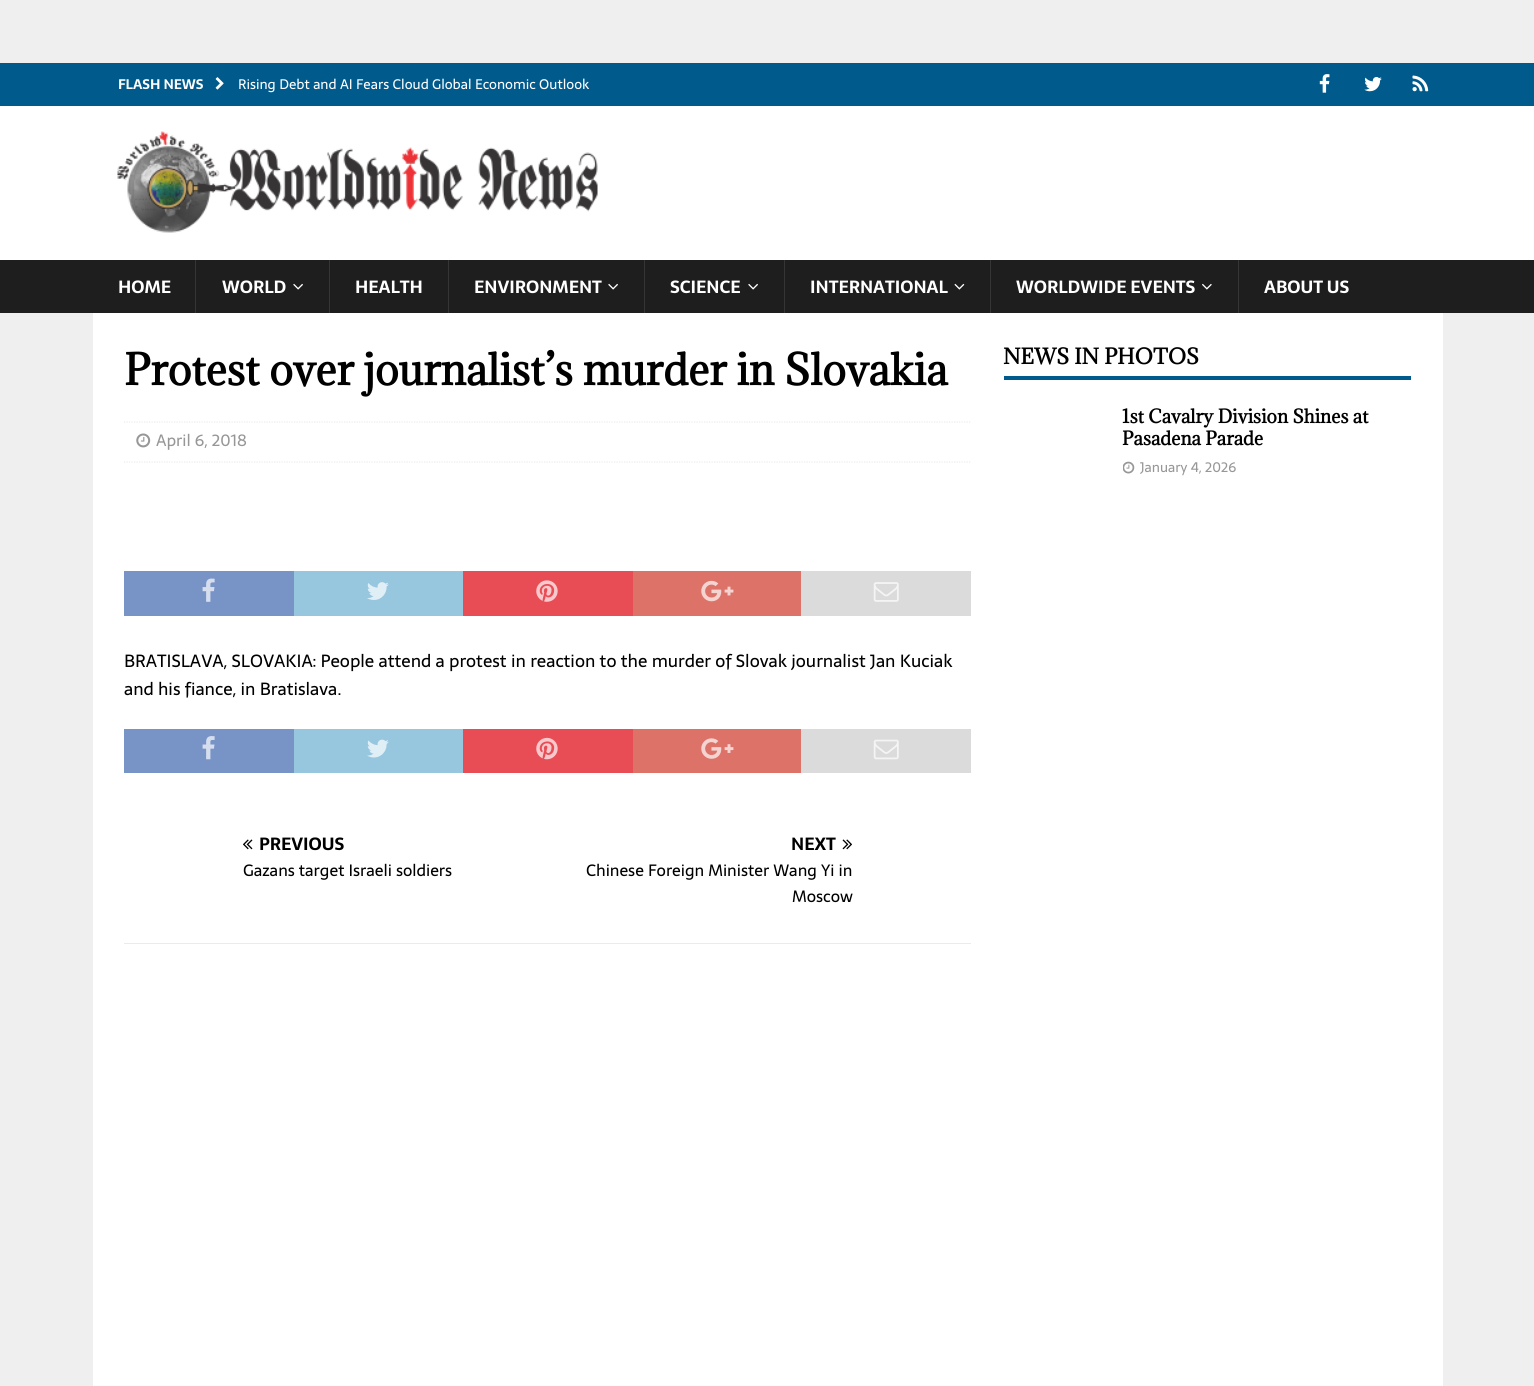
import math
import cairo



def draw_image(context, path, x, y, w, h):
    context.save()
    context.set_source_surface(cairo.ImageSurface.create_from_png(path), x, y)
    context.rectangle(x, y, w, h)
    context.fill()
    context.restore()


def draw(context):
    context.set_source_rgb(239 / 255, 239 / 255, 239 / 255)
    context.paint()
    context.set_source_rgb(0, 90 / 255, 140 / 255)
    context.rectangle(0, 63, 1534, 43)
    context.fill()
    draw_image(context, "images/1.png", 215, 77, 9, 13)
    draw_image(context, "images/2.png", 1319, 74, 11, 19)
    draw_image(context, "images/3.png", 1364, 77, 18, 15)
    draw_image(context, "images/4.png", 1412, 75, 17, 17)
    context.set_source_rgb(1, 1, 1)
    context.rectangle(0, 106, 1534, 154)
    context.fill()
    draw_image(context, "images/5.png", 117, 131, 481, 102)
    context.set_source_rgb(31 / 255, 30 / 255, 30 / 255)
    context.rectangle(0, 260, 1534, 53)
    context.fill()
    context.set_source_rgb(53 / 255, 53 / 255, 53 / 255)
    context.rectangle(195, 260, 1, 53)
    context.fill()
    draw_image(context, "images/6.png", 293, 283, 10, 7)
    context.rectangle(329, 260, 1, 53)
    context.fill()
    context.rectangle(448, 260, 1, 53)
    context.fill()
    draw_image(context, "images/6.png", 608, 283, 10, 7)
    context.rectangle(644, 260, 1, 53)
    context.fill()
    draw_image(context, "images/6.png", 748, 283, 10, 7)
    context.rectangle(784, 260, 1, 53)
    context.fill()
    draw_image(context, "images/7.png", 954, 283, 11, 7)
    context.rectangle(990, 260, 1, 53)
    context.fill()
    draw_image(context, "images/8.png", 1202, 283, 10, 7)
    context.rectangle(1238, 260, 1, 53)
    context.fill()
    context.set_source_rgb(1, 1, 1)
    context.rectangle(93, 313, 1350, 1073)
    context.fill()
    context.new_path()
    context.move_to(124, 422)
    context.line_to(971, 422)
    context.set_source_rgb(235 / 255, 235 / 255, 235 / 255)
    context.set_line_width(1.2)
    context.set_dash([1.25, 1.25])
    context.stroke()
    context.new_path()
    context.move_to(124, 462)
    context.line_to(971, 462)
    context.stroke()
    draw_image(context, "images/9.png", 136, 433, 15, 15)
    context.set_source_rgb(120 / 255, 147 / 255, 198 / 255)
    context.rectangle(124, 571, 170, 45)
    context.fill()
    draw_image(context, "images/10.png", 202, 578, 13, 24)
    context.set_source_rgb(151 / 255, 198 / 255, 223 / 255)
    context.rectangle(294, 571, 169, 45)
    context.fill()
    draw_image(context, "images/11.png", 367, 582, 22, 18)
    context.set_source_rgb(232 / 255, 77 / 255, 86 / 255)
    context.rectangle(463, 571, 170, 45)
    context.fill()
    draw_image(context, "images/12.png", 536, 580, 22, 22)
    context.set_source_rgb(220 / 255, 114 / 255, 104 / 255)
    context.rectangle(633, 571, 168, 45)
    context.fill()
    draw_image(context, "images/13.png", 701, 580, 33, 22)
    context.set_source_rgb(219 / 255, 219 / 255, 219 / 255)
    context.rectangle(801, 571, 170, 45)
    context.fill()
    draw_image(context, "images/14.png", 873, 582, 26, 20)
    context.set_source_rgb(120 / 255, 147 / 255, 198 / 255)
    context.rectangle(124, 729, 170, 44)
    context.fill()
    draw_image(context, "images/15.png", 202, 736, 13, 24)
    context.set_source_rgb(151 / 255, 198 / 255, 223 / 255)
    context.rectangle(294, 729, 169, 44)
    context.fill()
    draw_image(context, "images/16.png", 367, 739, 22, 19)
    context.set_source_rgb(232 / 255, 77 / 255, 86 / 255)
    context.rectangle(463, 729, 170, 44)
    context.fill()
    draw_image(context, "images/17.png", 536, 737, 22, 23)
    context.set_source_rgb(220 / 255, 114 / 255, 104 / 255)
    context.rectangle(633, 729, 168, 44)
    context.fill()
    draw_image(context, "images/18.png", 701, 738, 33, 21)
    context.set_source_rgb(219 / 255, 219 / 255, 219 / 255)
    context.rectangle(801, 729, 170, 44)
    context.fill()
    draw_image(context, "images/19.png", 873, 739, 26, 21)
    context.set_source_rgb(235 / 255, 235 / 255, 235 / 255)
    context.rectangle(124, 943, 847, 1)
    context.fill()
    draw_image(context, "images/20.png", 243, 839, 10, 11)
    draw_image(context, "images/21.png", 842, 839, 10, 11)
    context.set_source_rgb(0, 90 / 255, 140 / 255)
    context.rectangle(1004, 376, 407, 4)
    context.fill()
    draw_image(context, "images/22.png", 1123, 461, 12, 13)
    context.select_font_face("Sarala", cairo.FontSlant.NORMAL, cairo.FontWeight.BOLD)
    context.set_font_size(13.75)
    context.set_source_rgb(1, 1, 1)
    context.move_to(118, 89)
    context.show_text("FLASH NEWS")
    context.select_font_face("Sarala")
    context.move_to(238, 89)
    context.show_text("Rising Debt and AI Fears Cloud Global Economic Outlook")
    context.select_font_face("Sarala", cairo.FontSlant.NORMAL, cairo.FontWeight.BOLD)
    context.set_font_size(17.5)
    context.move_to(118, 293)
    context.show_text("HOME")
    context.move_to(222, 293)
    context.show_text("WORLD")
    context.move_to(355, 293)
    context.show_text("HEALTH")
    context.move_to(474, 293)
    context.show_text("ENVIRONMENT")
    context.move_to(670, 293)
    context.show_text("SCIENCE")
    context.move_to(810, 293)
    context.show_text("INTERNATIONAL")
    context.move_to(1016, 293)
    context.show_text("WORLDWIDE EVENTS")
    context.move_to(1264, 293)
    context.show_text("ABOUT US")
    context.select_font_face("Adamina", cairo.FontSlant.NORMAL, cairo.FontWeight.BOLD)
    context.set_font_size(40)
    context.set_source_rgb(0, 0, 0)
    context.move_to(124, 385)
    context.show_text("Protest over journalist’s murder in Slovakia")
    context.select_font_face("Sarala")
    context.set_font_size(16.25)
    context.set_source_rgb(151 / 255, 151 / 255, 151 / 255)
    context.move_to(156, 446)
    context.show_text("April 6, 2018")
    context.set_font_size(17.5)
    context.set_source_rgb(0, 0, 0)
    context.move_to(124, 667)
    context.show_text("BRATISLAVA, SLOVAKIA: People attend a protest in reaction to the murder of Slovak journalist Jan Kuciak")
    context.move_to(124, 695)
    context.show_text("and his fiance, in Bratislava.")
    context.select_font_face("Sarala", cairo.FontSlant.NORMAL, cairo.FontWeight.BOLD)
    context.move_to(259, 850)
    context.show_text("PREVIOUS")
    context.select_font_face("Sarala")
    context.set_font_size(16.25)
    context.move_to(243, 876)
    context.show_text("Gazans target Israeli soldiers")
    context.select_font_face("Sarala", cairo.FontSlant.NORMAL, cairo.FontWeight.BOLD)
    context.set_font_size(17.5)
    context.move_to(791, 850)
    context.show_text("NEXT")
    context.select_font_face("Sarala")
    context.set_font_size(16.25)
    context.move_to(586, 876)
    context.show_text("Chinese Foreign Minister Wang Yi in")
    context.move_to(792, 902)
    context.show_text("Moscow")
    context.select_font_face("Adamina", cairo.FontSlant.NORMAL, cairo.FontWeight.BOLD)
    context.set_font_size(20)
    context.move_to(1003, 364)
    context.show_text("NEWS IN PHOTOS")
    context.set_font_size(17.5)
    context.move_to(1122, 423)
    context.show_text("1st Cavalry Division Shines at")
    context.move_to(1122, 445)
    context.show_text("Pasadena Parade")
    context.select_font_face("Sarala")
    context.set_font_size(13.75)
    context.set_source_rgb(151 / 255, 151 / 255, 151 / 255)
    context.move_to(1140, 472)
    context.show_text("January 4, 2026")


surface = cairo.ImageSurface(cairo.Format.RGB24, 1534, 1386)
context = cairo.Context(surface)
options = cairo.FontOptions()
options.set_hint_metrics(cairo.HintMetrics.OFF)
options.set_hint_style(cairo.HintStyle.NONE)
context.set_font_options(options)
context.set_miter_limit(4)
draw(context)
surface.write_to_png("out.png")
